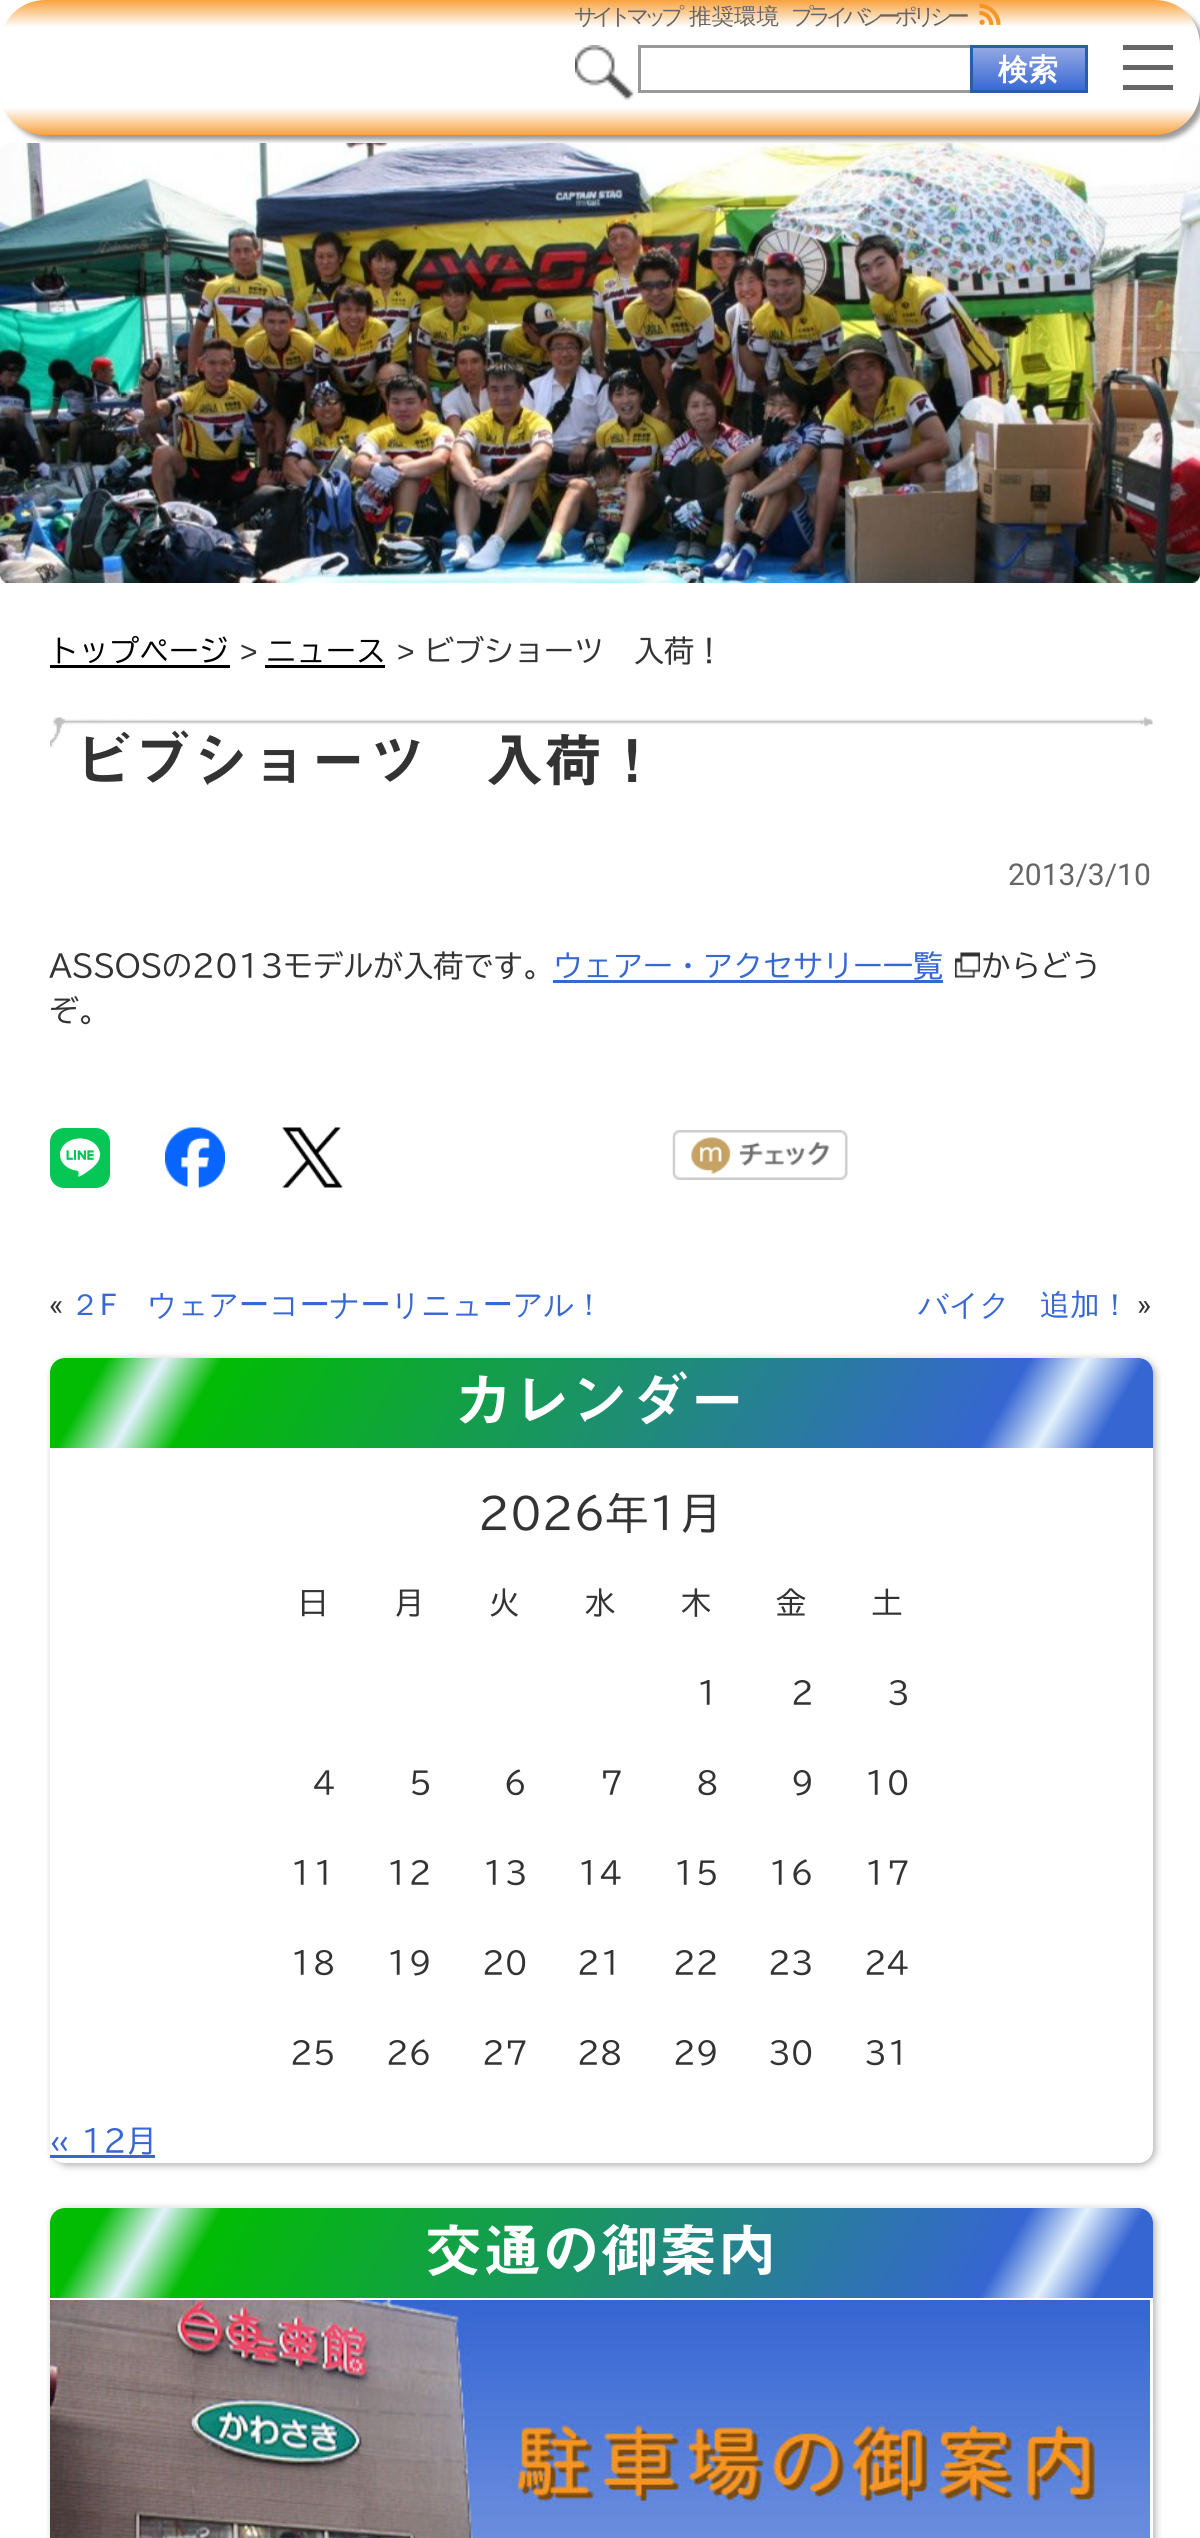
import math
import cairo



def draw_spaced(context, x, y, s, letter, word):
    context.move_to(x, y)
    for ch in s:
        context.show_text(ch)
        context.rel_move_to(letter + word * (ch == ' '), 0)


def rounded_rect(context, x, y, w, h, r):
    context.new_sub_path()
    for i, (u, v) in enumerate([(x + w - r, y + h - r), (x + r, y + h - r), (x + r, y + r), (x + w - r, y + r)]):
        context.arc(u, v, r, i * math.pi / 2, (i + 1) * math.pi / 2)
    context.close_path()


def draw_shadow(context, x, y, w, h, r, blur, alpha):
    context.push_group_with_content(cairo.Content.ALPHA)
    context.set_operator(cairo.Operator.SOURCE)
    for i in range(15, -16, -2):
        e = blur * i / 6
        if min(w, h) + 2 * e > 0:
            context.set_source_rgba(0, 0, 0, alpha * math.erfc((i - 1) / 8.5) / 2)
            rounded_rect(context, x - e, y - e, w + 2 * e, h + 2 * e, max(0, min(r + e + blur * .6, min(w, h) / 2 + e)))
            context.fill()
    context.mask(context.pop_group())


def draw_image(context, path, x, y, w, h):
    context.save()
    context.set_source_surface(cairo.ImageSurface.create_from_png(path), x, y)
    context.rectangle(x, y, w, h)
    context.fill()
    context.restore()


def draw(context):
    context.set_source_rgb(1, 1, 1)
    context.paint()
    context.set_source_rgb(153 / 255, 153 / 255, 153 / 255)
    draw_shadow(context, 5, 5, 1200, 135, 45, 2.5, 1)
    gradient = cairo.LinearGradient(600, 0, 600, 135)
    gradient.add_color_stop_rgba(0, 248 / 255, 162 / 255, 62 / 255, 1)
    gradient.add_color_stop_rgba(0.2, 1, 1, 1, 1)
    gradient.add_color_stop_rgba(0.8, 1, 1, 1, 1)
    gradient.add_color_stop_rgba(1, 248 / 255, 162 / 255, 62 / 255, 1)
    context.set_source(gradient)
    rounded_rect(context, 0, 0, 1200, 135, 45)
    context.fill()
    draw_image(context, "images/1.png", 979, 3, 22, 22)
    draw_image(context, "images/2.png", 575, 45, 59, 55)
    context.set_source_rgb(153 / 255, 153 / 255, 153 / 255)
    context.rectangle(638, 45, 332, 3)
    context.fill()
    context.rectangle(638, 90, 332, 3)
    context.fill()
    context.rectangle(638, 45, 3, 48)
    context.fill()
    gradient = cairo.LinearGradient(1029, 47, 1029, 90)
    gradient.add_color_stop_rgba(0, 148 / 255, 169 / 255, 227 / 255, 1)
    gradient.add_color_stop_rgba(1, 58 / 255, 105 / 255, 212 / 255, 1)
    context.set_source(gradient)
    context.rectangle(973, 48, 112, 42)
    context.fill()
    context.rectangle(971.5, 46.5, 115, 45)
    context.set_source_rgb(42 / 255, 93 / 255, 169 / 255)
    context.set_line_width(3)
    context.stroke()
    context.set_source_rgb(102 / 255, 102 / 255, 102 / 255)
    context.rectangle(1123, 45, 50, 5)
    context.fill()
    context.rectangle(1123, 65, 50, 5)
    context.fill()
    context.rectangle(1123, 85, 50, 5)
    context.fill()
    draw_image(context, "images/3.png", 0, 143, 1200, 440)
    context.set_source_rgb(0, 0, 0)
    context.rectangle(50, 665, 180, 3)
    context.fill()
    context.rectangle(265, 665, 120, 3)
    context.fill()
    draw_image(context, "images/4.png", 50, 717, 1103, 31)
    context.set_source_rgb(55 / 255, 103 / 255, 211 / 255)
    context.rectangle(553, 980, 390, 3)
    context.fill()
    draw_image(context, "images/5.png", 955, 952, 25, 26)
    draw_image(context, "images/6.png", 50, 1128, 60, 60)
    draw_image(context, "images/7.png", 165, 1127, 60, 61)
    draw_image(context, "images/8.png", 282, 1127, 61, 61)
    draw_image(context, "images/9.png", 672, 1130, 176, 50)
    context.save()
    context.set_fill_rule(cairo.FillRule.EVEN_ODD)
    context.new_path()
    context.move_to(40, 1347)
    context.line_to(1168, 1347)
    context.line_to(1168, 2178)
    context.line_to(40, 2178)
    context.close_path()
    context.move_to(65, 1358)
    context.line_to(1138, 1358)
    context.curve_to(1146.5, 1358, 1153, 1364.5, 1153, 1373)
    context.line_to(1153, 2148)
    context.curve_to(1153, 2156.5, 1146.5, 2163, 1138, 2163)
    context.line_to(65, 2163)
    context.curve_to(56.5, 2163, 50, 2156.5, 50, 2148)
    context.line_to(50, 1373)
    context.curve_to(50, 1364.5, 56.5, 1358, 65, 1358)
    context.close_path()
    context.clip()
    context.set_source_rgb(170 / 255, 170 / 255, 170 / 255)
    draw_shadow(context, 53, 1360, 1102, 805, 15, 4, 1)
    context.restore()
    gradient = cairo.LinearGradient(168, 1153, 1034, 1652)
    gradient.add_color_stop_rgba(0.05, 1 / 255, 188 / 255, 3 / 255, 1)
    gradient.add_color_stop_rgba(0.1, 226 / 255, 241 / 255, 252 / 255, 1)
    gradient.add_color_stop_rgba(0.15, 1 / 255, 188 / 255, 3 / 255, 1)
    gradient.add_color_stop_rgba(0.85, 54 / 255, 102 / 255, 210 / 255, 1)
    gradient.add_color_stop_rgba(0.9, 226 / 255, 241 / 255, 252 / 255, 1)
    gradient.add_color_stop_rgba(0.95, 54 / 255, 102 / 255, 210 / 255, 1)
    context.set_source(gradient)
    context.new_path()
    context.move_to(65, 1358)
    context.line_to(1138, 1358)
    context.curve_to(1146.5, 1358, 1153, 1364.5, 1153, 1373)
    context.line_to(1153, 1448)
    context.line_to(50, 1448)
    context.line_to(50, 1373)
    context.curve_to(50, 1364.5, 56.5, 1358, 65, 1358)
    context.close_path()
    context.fill()
    context.set_source_rgb(55 / 255, 103 / 255, 211 / 255)
    context.rectangle(50, 2155, 105, 3)
    context.fill()
    context.save()
    context.set_fill_rule(cairo.FillRule.EVEN_ODD)
    context.new_path()
    context.move_to(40, 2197)
    context.line_to(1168, 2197)
    context.line_to(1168, 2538)
    context.line_to(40, 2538)
    context.close_path()
    context.move_to(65, 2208)
    context.line_to(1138, 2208)
    context.curve_to(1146.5, 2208, 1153, 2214.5, 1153, 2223)
    context.line_to(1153, 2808)
    context.curve_to(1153, 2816.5, 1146.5, 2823, 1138, 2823)
    context.line_to(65, 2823)
    context.curve_to(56.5, 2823, 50, 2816.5, 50, 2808)
    context.line_to(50, 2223)
    context.curve_to(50, 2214.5, 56.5, 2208, 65, 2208)
    context.close_path()
    context.clip()
    context.set_source_rgb(170 / 255, 170 / 255, 170 / 255)
    draw_shadow(context, 53, 2210, 1102, 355, 15, 4, 1)
    context.restore()
    gradient = cairo.LinearGradient(168, 2003, 1034, 2502)
    gradient.add_color_stop_rgba(0.05, 1 / 255, 188 / 255, 3 / 255, 1)
    gradient.add_color_stop_rgba(0.1, 226 / 255, 241 / 255, 252 / 255, 1)
    gradient.add_color_stop_rgba(0.15, 1 / 255, 188 / 255, 3 / 255, 1)
    gradient.add_color_stop_rgba(0.85, 54 / 255, 102 / 255, 210 / 255, 1)
    gradient.add_color_stop_rgba(0.9, 226 / 255, 241 / 255, 252 / 255, 1)
    gradient.add_color_stop_rgba(0.95, 54 / 255, 102 / 255, 210 / 255, 1)
    context.set_source(gradient)
    context.new_path()
    context.move_to(65, 2208)
    context.line_to(1138, 2208)
    context.curve_to(1146.5, 2208, 1153, 2214.5, 1153, 2223)
    context.line_to(1153, 2298)
    context.line_to(50, 2298)
    context.line_to(50, 2223)
    context.curve_to(50, 2214.5, 56.5, 2208, 65, 2208)
    context.close_path()
    context.fill()
    draw_image(context, "images/10.png", 50, 2300, 1100, 238)
    context.select_font_face("WenQuanYi Zen Hei Medium")
    context.set_font_size(22.5)
    context.set_source_rgb(102 / 255, 102 / 255, 102 / 255)
    draw_spaced(context, 574, 24, "サイトマップ", -5.6, 0)
    context.move_to(689, 24)
    context.show_text("推奨環境")
    draw_spaced(context, 791, 24, "プライバシーポリシー", -5.6, 0)
    context.select_font_face("WenQuanYi Zen Hei", cairo.FontSlant.NORMAL, cairo.FontWeight.BOLD)
    context.set_font_size(30)
    context.set_source_rgb(1, 1, 1)
    context.move_to(998, 80)
    context.show_text("検索")
    context.select_font_face("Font")
    context.set_source_rgb(0, 0, 0)
    context.move_to(49, 662)
    context.show_text("トップページ")
    context.select_font_face("Liberation Sans")
    context.set_source_rgb(51 / 255, 51 / 255, 51 / 255)
    draw_spaced(context, 240, 662, ">", 9, 0)
    context.select_font_face("Font")
    context.set_source_rgb(0, 0, 0)
    context.move_to(266, 662)
    context.show_text("ニュース")
    context.select_font_face("Liberation Sans")
    context.set_source_rgb(51 / 255, 51 / 255, 51 / 255)
    draw_spaced(context, 397, 662, ">", 9, 0)
    context.select_font_face("Font")
    context.move_to(424, 662)
    context.show_text("ビブショーツ　入荷！")
    context.select_font_face("Font SemiBold")
    context.set_font_size(58.75)
    context.move_to(74, 782)
    context.show_text("ビブショーツ　入荷！")
    context.select_font_face("Roboto")
    context.set_font_size(30)
    context.set_source_rgb(102 / 255, 102 / 255, 102 / 255)
    context.move_to(1008, 885)
    context.show_text("2013/3/10")
    context.select_font_face("Font")
    context.set_source_rgb(51 / 255, 51 / 255, 51 / 255)
    context.move_to(49, 977)
    context.show_text("ASSOSの2013モデルが入荷です。")
    context.set_source_rgb(55 / 255, 103 / 255, 211 / 255)
    context.move_to(553, 977)
    context.show_text("ウェアー・アクセサリー一覧")
    context.set_source_rgb(51 / 255, 51 / 255, 51 / 255)
    context.move_to(981, 977)
    context.show_text("からどう")
    context.move_to(49, 1022)
    context.show_text("ぞ。")
    context.select_font_face("Roboto")
    context.move_to(49, 1315)
    context.show_text("«")
    context.select_font_face("WenQuanYi Zen Hei Medium")
    context.set_source_rgb(55 / 255, 103 / 255, 211 / 255)
    context.move_to(70, 1315)
    context.show_text("２")
    context.select_font_face("Roboto")
    context.move_to(100, 1315)
    context.show_text("F")
    context.select_font_face("WenQuanYi Zen Hei Medium")
    context.move_to(147, 1315)
    context.show_text("ウェアーコーナーリニューアル！")
    context.move_to(918, 1315)
    context.show_text("バイク　追加！")
    context.select_font_face("Roboto")
    context.set_source_rgb(51 / 255, 51 / 255, 51 / 255)
    context.move_to(1137, 1315)
    context.show_text("»")
    context.select_font_face("Font SemiBold")
    context.set_font_size(58.75)
    context.set_source_rgb(1, 1, 1)
    context.move_to(453, 1422)
    context.show_text("カレンダー")
    context.select_font_face("Font")
    context.set_font_size(42)
    context.set_source_rgb(51 / 255, 51 / 255, 51 / 255)
    context.move_to(478, 1529)
    context.show_text("2026年1月")
    context.set_font_size(30)
    context.move_to(298, 1614)
    context.show_text("日")
    context.move_to(394, 1614)
    context.show_text("月")
    context.move_to(489, 1614)
    context.show_text("火")
    context.move_to(585, 1614)
    context.show_text("水")
    context.move_to(681, 1614)
    context.show_text("木")
    context.move_to(776, 1614)
    context.show_text("金")
    context.move_to(872, 1614)
    context.show_text("土")
    context.move_to(696, 1704)
    context.show_text("1")
    context.move_to(791, 1704)
    context.show_text("2")
    context.move_to(887, 1704)
    context.show_text("3")
    context.move_to(313, 1794)
    context.show_text("4")
    context.move_to(409, 1794)
    context.show_text("5")
    context.move_to(504, 1794)
    context.show_text("6")
    context.move_to(600, 1794)
    context.show_text("7")
    context.move_to(696, 1794)
    context.show_text("8")
    context.move_to(791, 1794)
    context.show_text("9")
    context.move_to(864, 1794)
    context.show_text("10")
    context.move_to(290, 1884)
    context.show_text("11")
    context.move_to(386, 1884)
    context.show_text("12")
    context.move_to(482, 1884)
    context.show_text("13")
    context.move_to(577, 1884)
    context.show_text("14")
    context.move_to(673, 1884)
    context.show_text("15")
    context.move_to(768, 1884)
    context.show_text("16")
    context.move_to(864, 1884)
    context.show_text("17")
    context.move_to(290, 1974)
    context.show_text("18")
    context.move_to(386, 1974)
    context.show_text("19")
    context.move_to(482, 1974)
    context.show_text("20")
    context.move_to(577, 1974)
    context.show_text("21")
    context.move_to(673, 1974)
    context.show_text("22")
    context.move_to(768, 1974)
    context.show_text("23")
    context.move_to(864, 1974)
    context.show_text("24")
    context.move_to(290, 2064)
    context.show_text("25")
    context.move_to(386, 2064)
    context.show_text("26")
    context.move_to(482, 2064)
    context.show_text("27")
    context.move_to(577, 2064)
    context.show_text("28")
    context.move_to(673, 2064)
    context.show_text("29")
    context.move_to(768, 2064)
    context.show_text("30")
    context.move_to(864, 2064)
    context.show_text("31")
    context.set_source_rgb(55 / 255, 103 / 255, 211 / 255)
    context.move_to(49, 2152)
    context.show_text("« 12月")
    context.select_font_face("Font SemiBold")
    context.set_font_size(58.75)
    context.set_source_rgb(1, 1, 1)
    context.move_to(424, 2272)
    context.show_text("交通の御案内")


surface = cairo.ImageSurface(cairo.Format.RGB24, 1200, 2538)
context = cairo.Context(surface)
options = cairo.FontOptions()
options.set_hint_metrics(cairo.HintMetrics.OFF)
options.set_hint_style(cairo.HintStyle.NONE)
context.set_font_options(options)
context.set_miter_limit(4)
draw(context)
surface.write_to_png("out.png")
